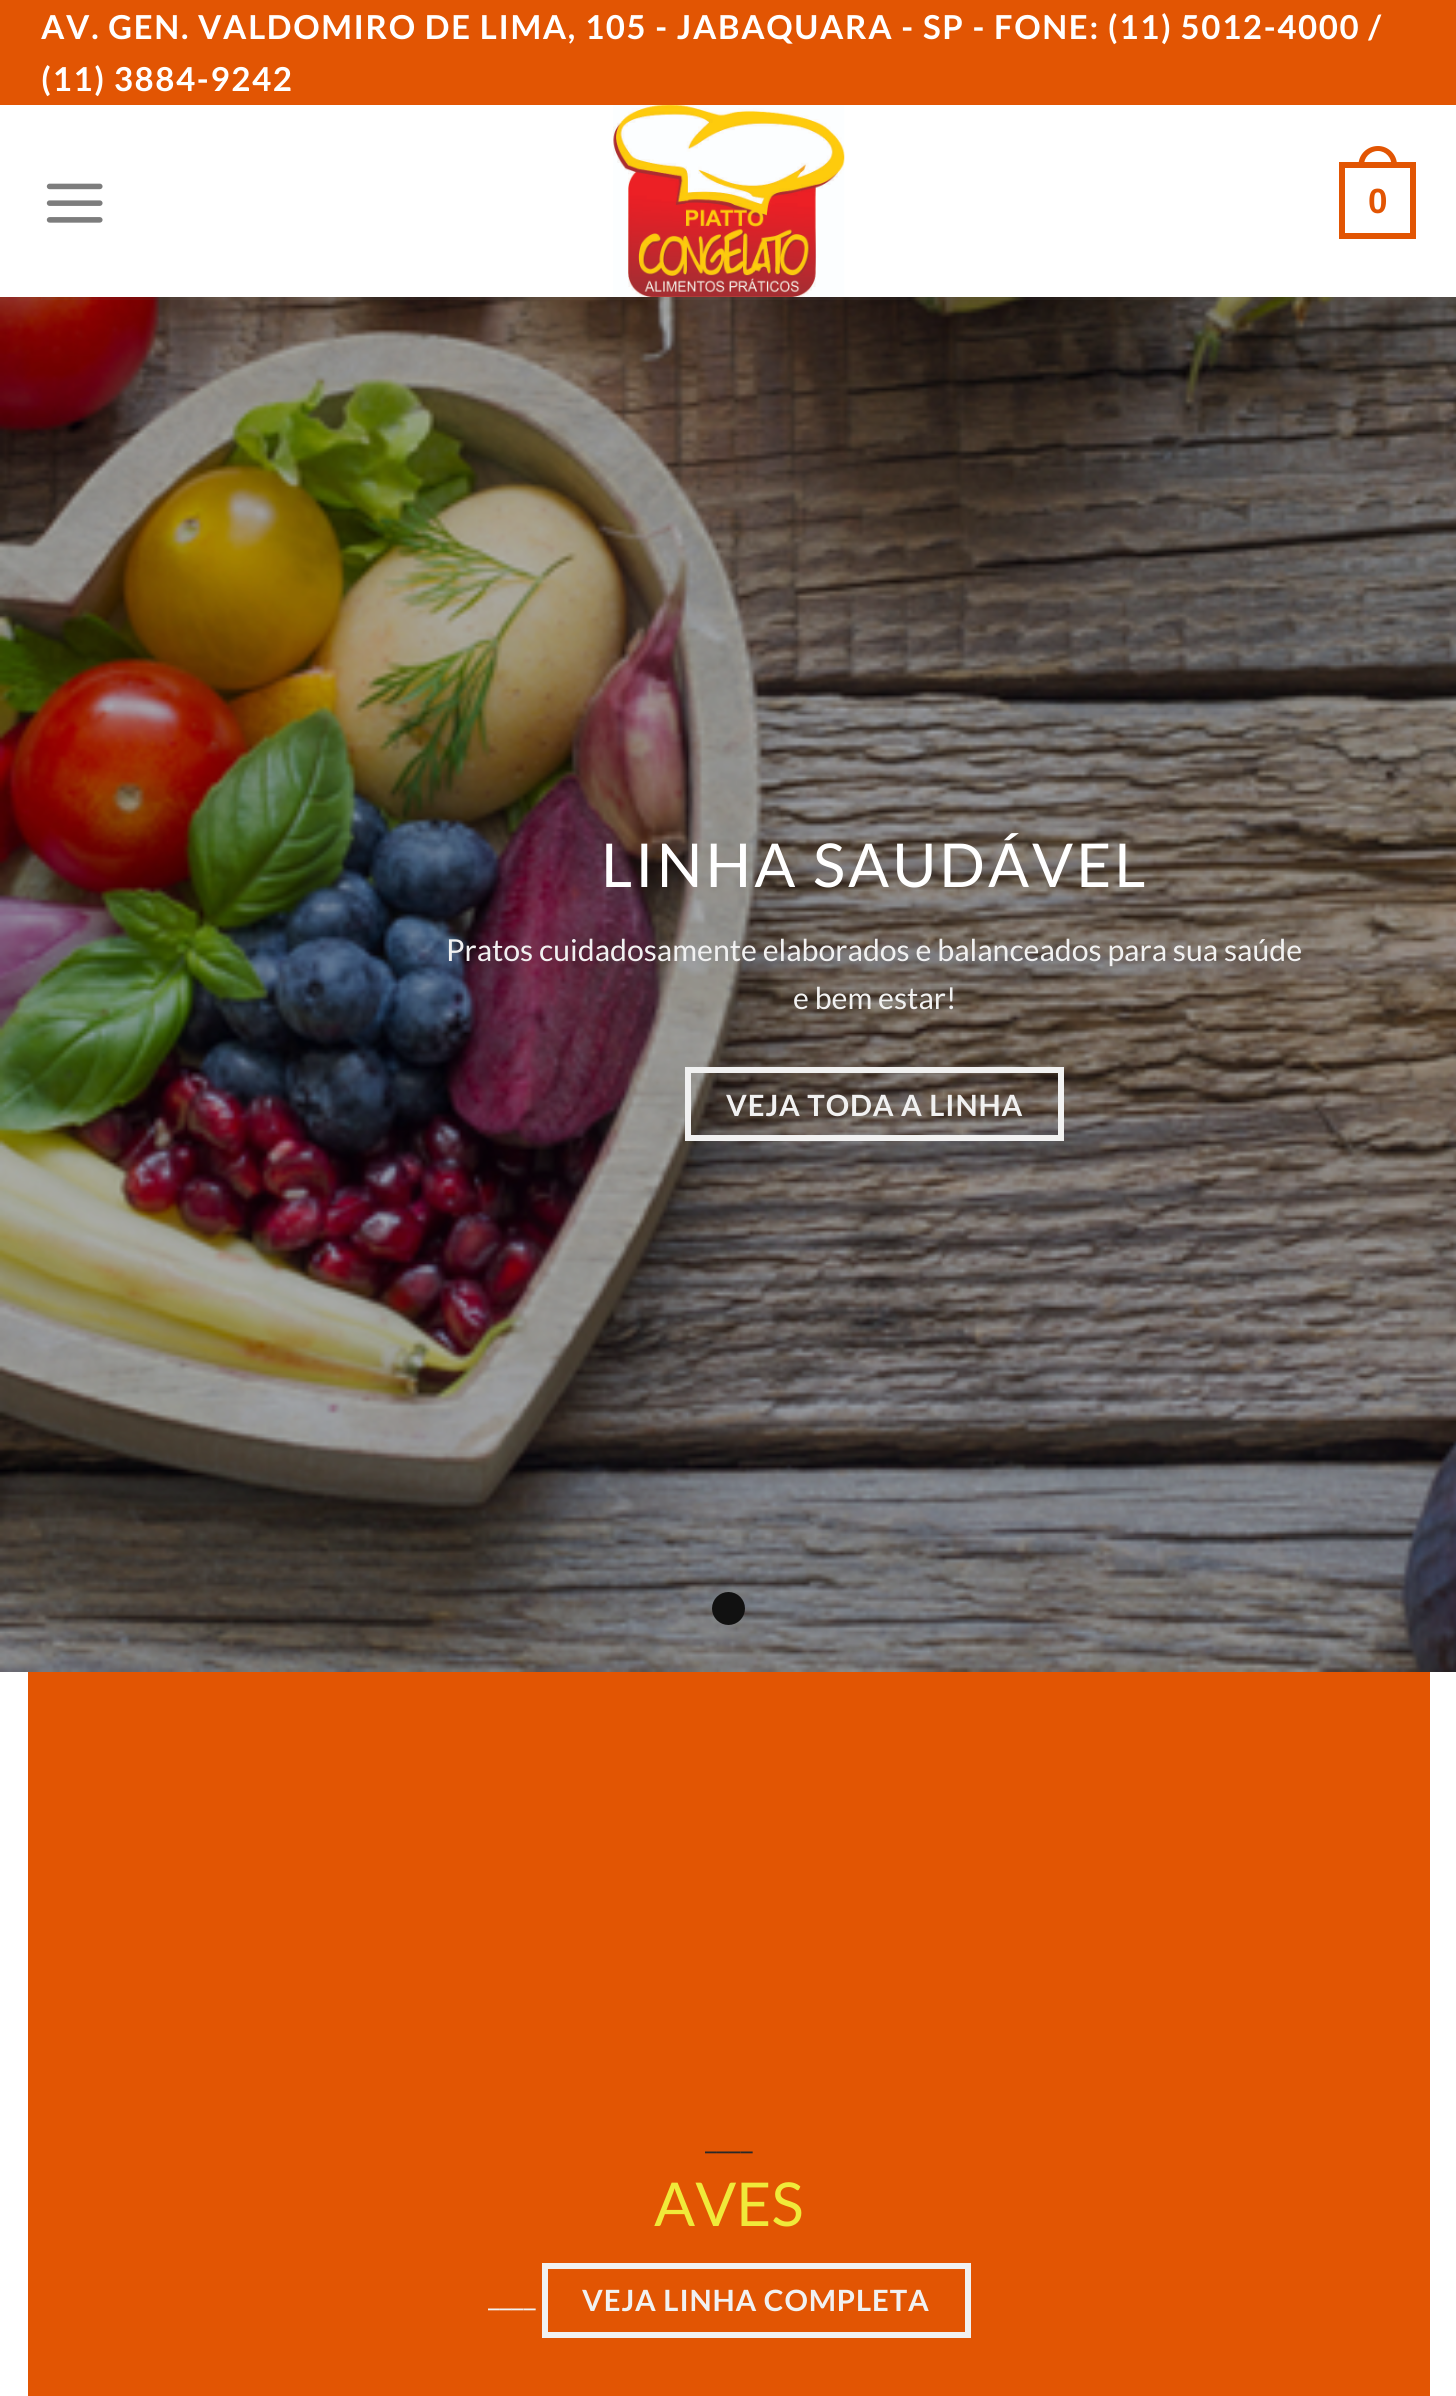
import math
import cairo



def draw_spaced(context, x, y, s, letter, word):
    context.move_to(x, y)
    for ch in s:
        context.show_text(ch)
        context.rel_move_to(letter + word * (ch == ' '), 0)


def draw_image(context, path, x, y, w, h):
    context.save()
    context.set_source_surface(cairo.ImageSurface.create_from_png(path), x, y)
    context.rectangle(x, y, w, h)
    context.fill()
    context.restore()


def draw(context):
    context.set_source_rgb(1, 1, 1)
    context.paint()
    context.set_source_rgb(226 / 255, 85 / 255, 3 / 255)
    context.rectangle(0, 0, 1456, 105)
    context.fill()
    draw_image(context, "images/1.png", 46, 183, 57, 40)
    draw_image(context, "images/2.png", 613, 105, 232, 192)
    context.rectangle(1342, 165, 71, 71)
    context.set_line_width(6)
    context.stroke()
    context.set_fill_rule(cairo.FillRule.EVEN_ODD)
    context.new_path()
    context.move_to(1378, 146)
    context.curve_to(1388.5, 146, 1397, 154.5, 1397, 165)
    context.line_to(1397, 168)
    context.line_to(1358.5, 168)
    context.line_to(1358.5, 165)
    context.curve_to(1358.5, 154.5, 1367, 146, 1378, 146)
    context.close_path()
    context.move_to(1378, 151)
    context.curve_to(1385.5, 151, 1391.5, 157.5, 1391.5, 165)
    context.line_to(1391.5, 168)
    context.line_to(1364, 168)
    context.line_to(1364, 165)
    context.curve_to(1364, 157.5, 1370, 151, 1378, 151)
    context.close_path()
    context.fill()
    draw_image(context, "images/3.png", 0, 297, 1456, 1375)
    context.set_source_rgba(119 / 255, 119 / 255, 119 / 255, 0.1)
    context.rectangle(41, 297, 1375, 3)
    context.fill()
    context.rectangle(688, 1070, 373, 68)
    context.set_source_rgb(241 / 255, 241 / 255, 241 / 255)
    context.stroke()
    context.set_source_rgb(17 / 255, 17 / 255, 17 / 255)
    context.arc(728.5, 1608.5, 12.5, 0, 2 * math.pi)
    context.fill_preserve()
    context.set_line_width(8)
    context.stroke()
    context.set_source_rgb(226 / 255, 85 / 255, 3 / 255)
    context.rectangle(28, 1672, 1402, 724)
    context.fill()
    context.rectangle(545, 2266, 423, 69)
    context.set_source_rgb(241 / 255, 241 / 255, 241 / 255)
    context.set_line_width(6)
    context.stroke()
    context.select_font_face("Lato", cairo.FontSlant.NORMAL, cairo.FontWeight.BOLD)
    context.set_font_size(33)
    context.set_source_rgb(1, 1, 1)
    draw_spaced(context, 41, 39, "AV. GEN. VALDOMIRO DE LIMA, 105 - JABAQUARA - SP - FONE: (11) 5012-4000 /", 1.65, 0)
    draw_spaced(context, 41, 91, "(11) 3884-9242", 1.65, 0)
    context.select_font_face("Liberation Sans", cairo.FontSlant.NORMAL, cairo.FontWeight.BOLD)
    context.set_font_size(35)
    context.set_source_rgb(226 / 255, 85 / 255, 3 / 255)
    context.move_to(1368, 213)
    context.show_text("0")
    context.select_font_face("Lato")
    context.set_font_size(60.5)
    context.set_source_rgb(1, 1, 1)
    draw_spaced(context, 601, 887, "LINHA SAUDÁVEL", 3, 0)
    context.set_font_size(30.25)
    context.set_source_rgb(241 / 255, 241 / 255, 241 / 255)
    context.move_to(446, 961)
    context.show_text("Pratos cuidadosamente elaborados e balanceados para sua saúde")
    context.move_to(793, 1009)
    context.show_text("e bem estar!")
    context.select_font_face("Lato", cairo.FontSlant.NORMAL, cairo.FontWeight.BOLD)
    context.set_font_size(29.3)
    draw_spaced(context, 726, 1116, "VEJA TODA A LINHA", 0.9, 0)
    context.select_font_face("Lato")
    context.set_font_size(30.25)
    context.set_source_rgb(40 / 255, 40 / 255, 40 / 255)
    context.move_to(705, 2149)
    context.show_text("____")
    context.set_font_size(60.5)
    context.set_source_rgb(240 / 255, 234 / 255, 58 / 255)
    context.move_to(654, 2226)
    context.show_text("AVES")
    context.set_font_size(30.25)
    context.set_source_rgb(241 / 255, 241 / 255, 241 / 255)
    context.move_to(488, 2306)
    context.show_text("____")
    context.select_font_face("Lato", cairo.FontSlant.NORMAL, cairo.FontWeight.BOLD)
    context.set_font_size(29.3)
    draw_spaced(context, 582, 2311, "VEJA LINHA COMPLETA", 0.9, 0)


surface = cairo.ImageSurface(cairo.Format.RGB24, 1456, 2396)
context = cairo.Context(surface)
options = cairo.FontOptions()
options.set_hint_metrics(cairo.HintMetrics.OFF)
options.set_hint_style(cairo.HintStyle.NONE)
context.set_font_options(options)
context.set_miter_limit(4)
draw(context)
surface.write_to_png("out.png")
